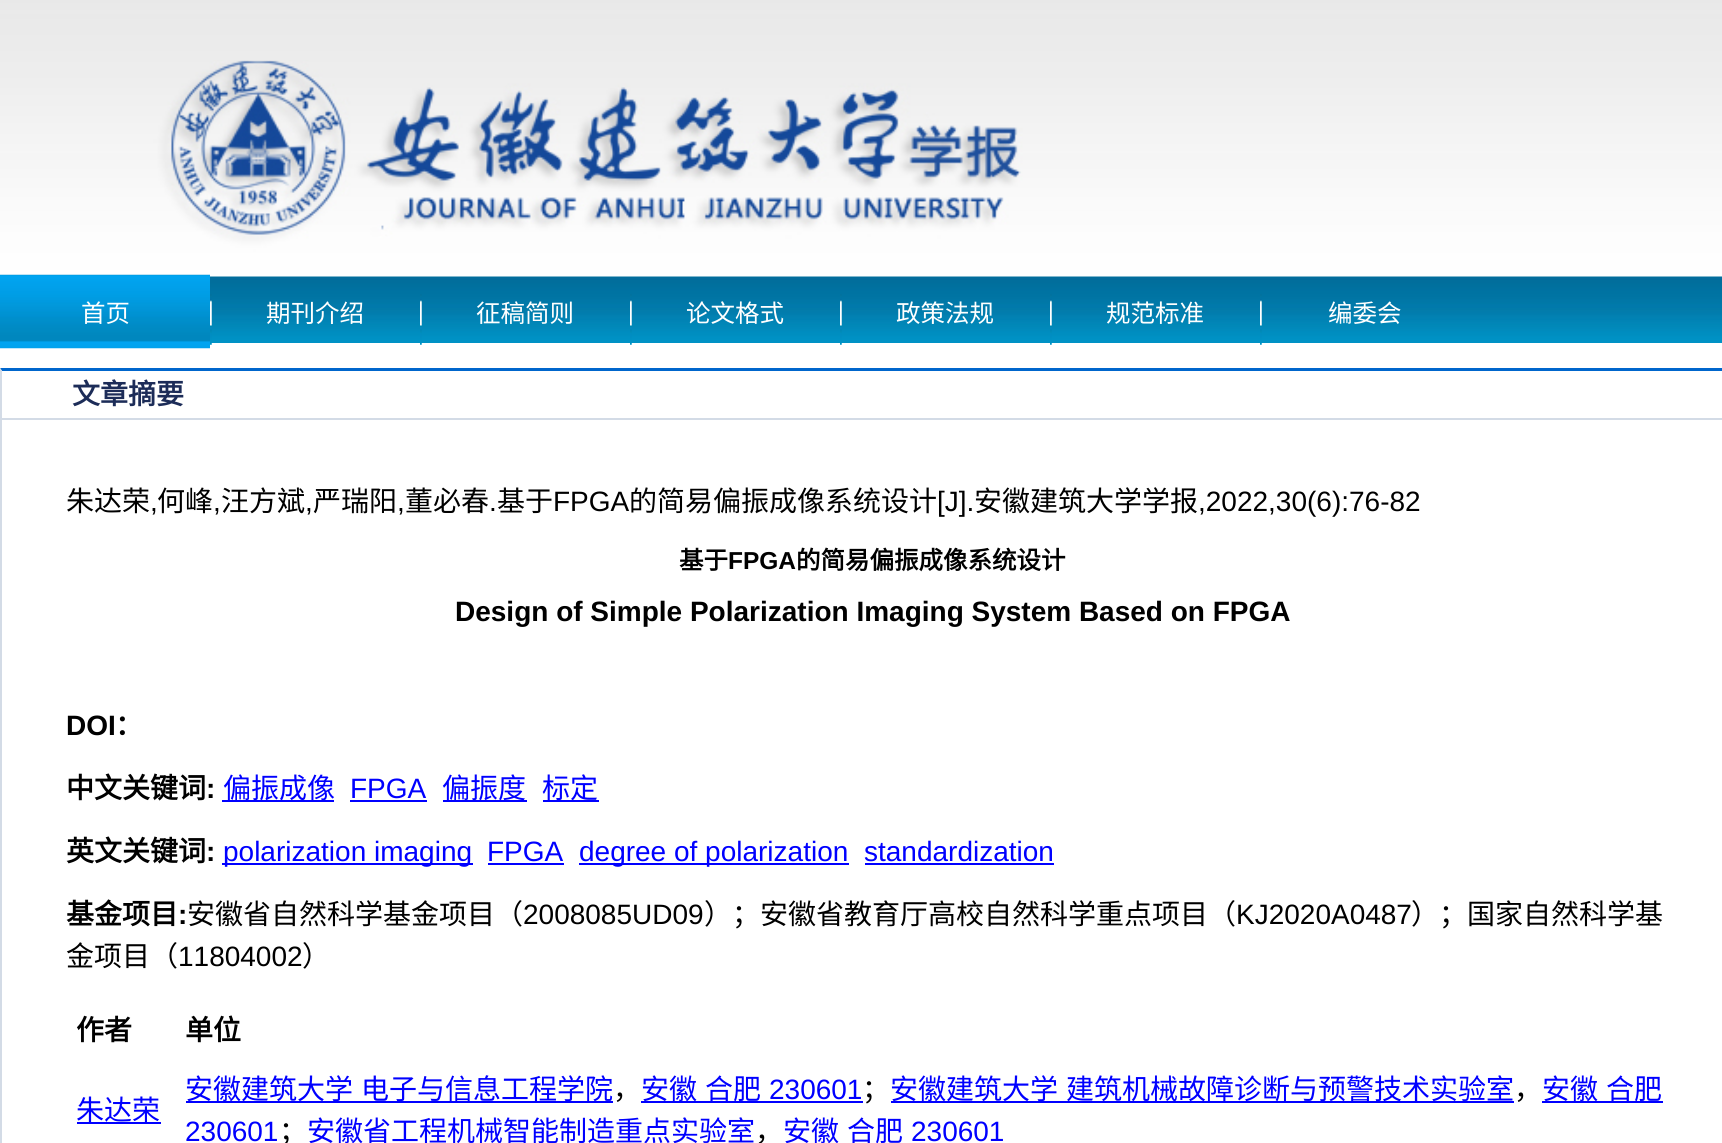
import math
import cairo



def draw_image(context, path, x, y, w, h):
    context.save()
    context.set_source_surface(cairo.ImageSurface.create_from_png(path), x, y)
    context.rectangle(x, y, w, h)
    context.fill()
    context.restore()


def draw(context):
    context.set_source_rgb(1, 1, 1)
    context.paint()
    draw_image(context, "images/1.png", 0, 0, 1722, 343)
    context.set_source_rgb(2 / 255, 110 / 255, 156 / 255)
    context.rectangle(210, 276, 1512, 2)
    context.fill()
    draw_image(context, "images/2.png", 0, 60, 1722, 217)
    draw_image(context, "images/3.png", 0, 274, 210, 75)
    draw_image(context, "images/4.png", 210, 294, 2, 51)
    draw_image(context, "images/4.png", 420, 294, 2, 51)
    draw_image(context, "images/4.png", 630, 294, 2, 51)
    draw_image(context, "images/4.png", 840, 294, 2, 51)
    draw_image(context, "images/4.png", 1050, 294, 2, 51)
    draw_image(context, "images/4.png", 1260, 294, 2, 51)
    context.set_source_rgb(0, 102 / 255, 204 / 255)
    context.new_path()
    context.move_to(0, 368)
    context.line_to(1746, 368)
    context.line_to(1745, 371)
    context.line_to(2, 371)
    context.close_path()
    context.fill()
    context.set_source_rgb(211 / 255, 219 / 255, 230 / 255)
    context.new_path()
    context.move_to(0, 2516)
    context.line_to(0, 368)
    context.line_to(2, 371)
    context.line_to(2, 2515)
    context.close_path()
    context.fill()
    context.rectangle(2, 418, 1720, 2)
    context.fill()
    context.set_source_rgb(0, 0, 1)
    context.rectangle(222, 800, 112, 2)
    context.fill()
    context.rectangle(350, 800, 77, 2)
    context.fill()
    context.rectangle(443, 800, 84, 2)
    context.fill()
    context.rectangle(543, 800, 56, 2)
    context.fill()
    context.rectangle(222, 863, 251, 2)
    context.fill()
    context.rectangle(488, 863, 76, 2)
    context.fill()
    context.rectangle(579, 863, 270, 2)
    context.fill()
    context.rectangle(865, 863, 189, 2)
    context.fill()
    context.rectangle(77, 1122, 84, 2)
    context.fill()
    context.rectangle(186, 1101, 427, 2)
    context.fill()
    context.rectangle(641, 1101, 222, 2)
    context.fill()
    context.rectangle(891, 1101, 623, 2)
    context.fill()
    context.rectangle(1542, 1101, 121, 2)
    context.fill()
    context.select_font_face("Noto Sans CJK SC")
    context.set_font_size(24.5)
    context.set_source_rgb(1, 1, 1)
    context.move_to(81, 322)
    context.show_text("首页")
    context.move_to(266, 322)
    context.show_text("期刊介绍")
    context.move_to(476, 322)
    context.show_text("征稿简则")
    context.move_to(686, 322)
    context.show_text("论文格式")
    context.move_to(896, 322)
    context.show_text("政策法规")
    context.move_to(1106, 322)
    context.show_text("规范标准")
    context.move_to(1328, 322)
    context.show_text("编委会")
    context.select_font_face("Noto Sans CJK SC", cairo.FontSlant.NORMAL, cairo.FontWeight.BOLD)
    context.set_font_size(28)
    context.set_source_rgb(28 / 255, 44 / 255, 88 / 255)
    context.move_to(72, 404)
    context.show_text("文章摘要")
    context.select_font_face("Noto Sans CJK SC")
    context.set_source_rgb(0, 0, 0)
    context.move_to(66, 511)
    context.show_text("朱达荣")
    context.select_font_face("Liberation Sans")
    context.move_to(150, 511)
    context.show_text(",")
    context.select_font_face("Noto Sans CJK SC")
    context.move_to(157, 511)
    context.show_text("何峰")
    context.select_font_face("Liberation Sans")
    context.move_to(213, 511)
    context.show_text(",")
    context.select_font_face("Noto Sans CJK SC")
    context.move_to(221, 511)
    context.show_text("汪方斌")
    context.select_font_face("Liberation Sans")
    context.move_to(305, 511)
    context.show_text(",")
    context.select_font_face("Noto Sans CJK SC")
    context.move_to(313, 511)
    context.show_text("严瑞阳")
    context.select_font_face("Liberation Sans")
    context.move_to(397, 511)
    context.show_text(",")
    context.select_font_face("Noto Sans CJK SC")
    context.move_to(405, 511)
    context.show_text("董必春")
    context.select_font_face("Liberation Sans")
    context.move_to(489, 511)
    context.show_text(".")
    context.select_font_face("Noto Sans CJK SC")
    context.move_to(497, 511)
    context.show_text("基于")
    context.select_font_face("Liberation Sans")
    context.move_to(553, 511)
    context.show_text("FPGA")
    context.select_font_face("Noto Sans CJK SC")
    context.move_to(629, 511)
    context.show_text("的简易偏振成像系统设计")
    context.select_font_face("Liberation Sans")
    context.move_to(937, 511)
    context.show_text("[J].")
    context.select_font_face("Noto Sans CJK SC")
    context.move_to(974, 511)
    context.show_text("安徽建筑大学学报")
    context.select_font_face("Liberation Sans")
    context.move_to(1198, 511)
    context.show_text(",2022,30(6):76-82")
    context.select_font_face("Noto Sans CJK SC", cairo.FontSlant.NORMAL, cairo.FontWeight.BOLD)
    context.set_font_size(24.5)
    context.move_to(679, 569)
    context.show_text("基于")
    context.select_font_face("Liberation Sans", cairo.FontSlant.NORMAL, cairo.FontWeight.BOLD)
    context.move_to(728, 569)
    context.show_text("FPGA")
    context.select_font_face("Noto Sans CJK SC", cairo.FontSlant.NORMAL, cairo.FontWeight.BOLD)
    context.move_to(796, 569)
    context.show_text("的简易偏振成像系统设计")
    context.select_font_face("Liberation Sans", cairo.FontSlant.NORMAL, cairo.FontWeight.BOLD)
    context.set_font_size(28)
    context.move_to(455, 621)
    context.show_text("Design of Simple Polarization Imaging System Based on FPGA")
    context.move_to(66, 735)
    context.show_text("DOI")
    context.select_font_face("Noto Sans CJK SC", cairo.FontSlant.NORMAL, cairo.FontWeight.BOLD)
    context.move_to(115, 735)
    context.show_text("：")
    context.move_to(66, 798)
    context.show_text("中文关键词")
    context.select_font_face("Liberation Sans", cairo.FontSlant.NORMAL, cairo.FontWeight.BOLD)
    context.move_to(206, 798)
    context.show_text(":")
    context.select_font_face("Noto Sans CJK SC")
    context.set_source_rgb(0, 0, 1)
    context.move_to(223, 798)
    context.show_text("偏振成像")
    context.select_font_face("Liberation Sans")
    context.move_to(350, 798)
    context.show_text("FPGA")
    context.select_font_face("Noto Sans CJK SC")
    context.move_to(442, 798)
    context.show_text("偏振度")
    context.move_to(542, 798)
    context.show_text("标定")
    context.select_font_face("Noto Sans CJK SC", cairo.FontSlant.NORMAL, cairo.FontWeight.BOLD)
    context.set_source_rgb(0, 0, 0)
    context.move_to(66, 861)
    context.show_text("英文关键词")
    context.select_font_face("Liberation Sans", cairo.FontSlant.NORMAL, cairo.FontWeight.BOLD)
    context.move_to(206, 861)
    context.show_text(":")
    context.select_font_face("Liberation Sans")
    context.set_source_rgb(0, 0, 1)
    context.move_to(223, 861)
    context.show_text("polarization imaging")
    context.move_to(487, 861)
    context.show_text("FPGA")
    context.move_to(579, 861)
    context.show_text("degree of polarization")
    context.move_to(864, 861)
    context.show_text("standardization")
    context.select_font_face("Noto Sans CJK SC", cairo.FontSlant.NORMAL, cairo.FontWeight.BOLD)
    context.set_source_rgb(0, 0, 0)
    context.move_to(66, 924)
    context.show_text("基金项目")
    context.select_font_face("Liberation Sans", cairo.FontSlant.NORMAL, cairo.FontWeight.BOLD)
    context.move_to(178, 924)
    context.show_text(":")
    context.select_font_face("Noto Sans CJK SC")
    context.move_to(187, 924)
    context.show_text("安徽省自然科学基金项目（")
    context.select_font_face("Liberation Sans")
    context.move_to(523, 924)
    context.show_text("2008085UD09")
    context.select_font_face("Noto Sans CJK SC")
    context.move_to(704, 924)
    context.show_text("）；安徽省教育厅高校自然科学重点项目（")
    context.select_font_face("Liberation Sans")
    context.move_to(1236, 924)
    context.show_text("KJ2020A0487")
    context.select_font_face("Noto Sans CJK SC")
    context.move_to(1411, 924)
    context.show_text("）；国家自然科学基")
    context.move_to(66, 966)
    context.show_text("金项目（")
    context.select_font_face("Liberation Sans")
    context.move_to(178, 966)
    context.show_text("11804002")
    context.select_font_face("Noto Sans CJK SC")
    context.move_to(302, 966)
    context.show_text("）")
    context.select_font_face("Noto Sans CJK SC", cairo.FontSlant.NORMAL, cairo.FontWeight.BOLD)
    context.move_to(76, 1040)
    context.show_text("作者")
    context.move_to(185, 1040)
    context.show_text("单位")
    context.select_font_face("Noto Sans CJK SC")
    context.set_source_rgb(0, 0, 1)
    context.move_to(76, 1120)
    context.show_text("朱达荣")
    context.move_to(185, 1099)
    context.show_text("安徽建筑大学")
    context.move_to(361, 1099)
    context.show_text("电子与信息工程学院")
    context.set_source_rgb(0, 0, 0)
    context.move_to(613, 1099)
    context.show_text("，")
    context.set_source_rgb(0, 0, 1)
    context.move_to(641, 1099)
    context.show_text("安徽")
    context.move_to(705, 1099)
    context.show_text("合肥")
    context.select_font_face("Liberation Sans")
    context.move_to(769, 1099)
    context.show_text("230601")
    context.select_font_face("Noto Sans CJK SC")
    context.set_source_rgb(0, 0, 0)
    context.move_to(862, 1099)
    context.show_text("；")
    context.set_source_rgb(0, 0, 1)
    context.move_to(890, 1099)
    context.show_text("安徽建筑大学")
    context.move_to(1066, 1099)
    context.show_text("建筑机械故障诊断与预警技术实验室")
    context.set_source_rgb(0, 0, 0)
    context.move_to(1514, 1099)
    context.show_text("，")
    context.set_source_rgb(0, 0, 1)
    context.move_to(1542, 1099)
    context.show_text("安徽")
    context.move_to(1606, 1099)
    context.show_text("合肥")
    context.select_font_face("Liberation Sans")
    context.move_to(185, 1141)
    context.show_text("230601")
    context.select_font_face("Noto Sans CJK SC")
    context.set_source_rgb(0, 0, 0)
    context.move_to(279, 1141)
    context.show_text("；")
    context.set_source_rgb(0, 0, 1)
    context.move_to(307, 1141)
    context.show_text("安徽省工程机械智能制造重点实验室")
    context.set_source_rgb(0, 0, 0)
    context.move_to(755, 1141)
    context.show_text("，")
    context.set_source_rgb(0, 0, 1)
    context.move_to(783, 1141)
    context.show_text("安徽")
    context.move_to(847, 1141)
    context.show_text("合肥")
    context.select_font_face("Liberation Sans")
    context.move_to(911, 1141)
    context.show_text("230601")


surface = cairo.ImageSurface(cairo.Format.RGB24, 1722, 1143)
context = cairo.Context(surface)
options = cairo.FontOptions()
options.set_hint_metrics(cairo.HintMetrics.OFF)
options.set_hint_style(cairo.HintStyle.NONE)
context.set_font_options(options)
context.set_miter_limit(4)
draw(context)
surface.write_to_png("out.png")
